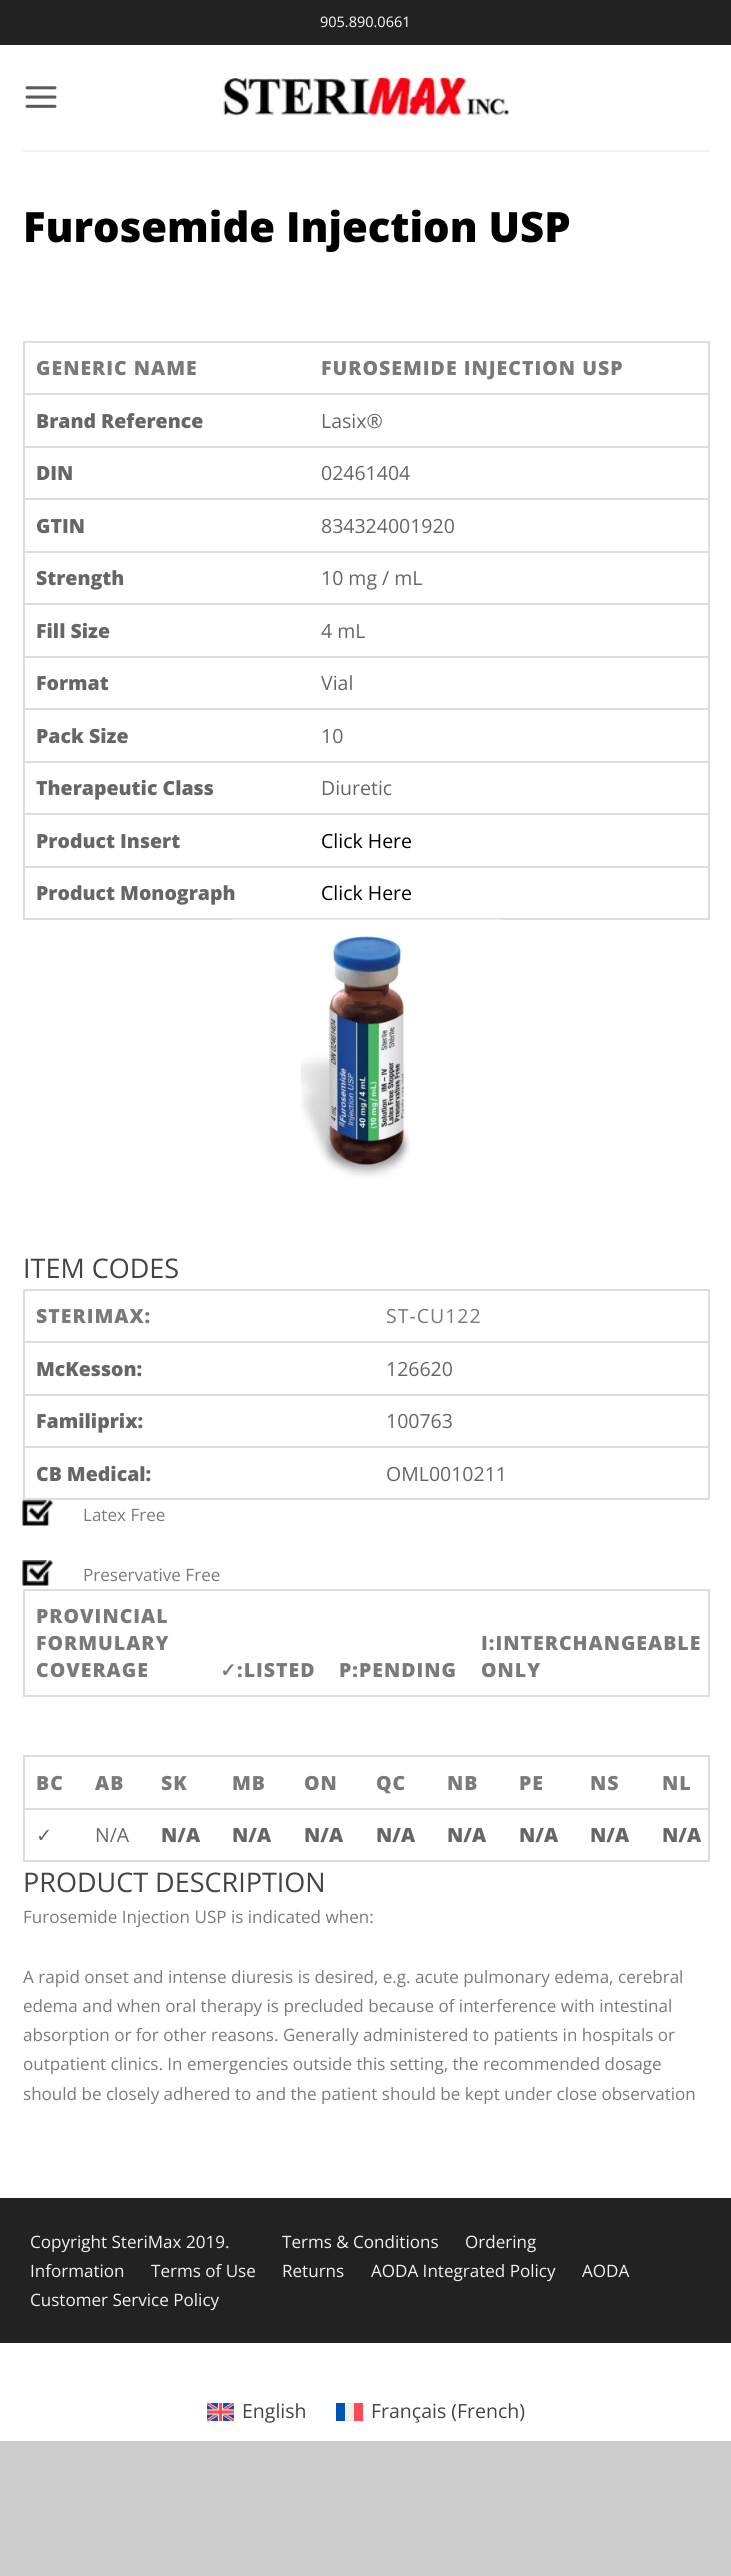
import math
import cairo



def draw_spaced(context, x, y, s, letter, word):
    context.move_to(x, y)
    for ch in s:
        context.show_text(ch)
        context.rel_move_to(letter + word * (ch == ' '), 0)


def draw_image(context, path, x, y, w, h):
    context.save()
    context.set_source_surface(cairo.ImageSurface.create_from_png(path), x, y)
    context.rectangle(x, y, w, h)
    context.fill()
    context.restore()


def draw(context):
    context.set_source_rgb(204 / 255, 204 / 255, 204 / 255)
    context.paint()
    context.set_source_rgb(1, 1, 1)
    context.rectangle(0, 45, 731, 2153)
    context.fill()
    context.set_source_rgb(34 / 255, 34 / 255, 34 / 255)
    context.rectangle(0, 0, 731, 45)
    context.fill()
    draw_image(context, "images/1.png", 25, 86, 32, 22)
    draw_image(context, "images/2.png", 223, 78, 286, 39)
    context.set_source_rgb(242 / 255, 242 / 255, 242 / 255)
    context.rectangle(23, 150, 687, 2)
    context.fill()
    context.rectangle(24, 342, 685, 577)
    context.set_source_rgb(221 / 255, 221 / 255, 221 / 255)
    context.stroke()
    context.rectangle(24, 393, 684, 2)
    context.fill()
    context.rectangle(24, 446, 684, 2)
    context.fill()
    context.rectangle(24, 498, 684, 2)
    context.fill()
    context.rectangle(24, 551, 684, 2)
    context.fill()
    context.rectangle(24, 603, 684, 2)
    context.fill()
    context.rectangle(24, 656, 684, 2)
    context.fill()
    context.rectangle(24, 708, 684, 2)
    context.fill()
    context.rectangle(24, 761, 684, 2)
    context.fill()
    context.rectangle(24, 813, 684, 2)
    context.fill()
    context.rectangle(24, 866, 684, 2)
    context.fill()
    draw_image(context, "images/3.png", 232, 919, 269, 260)
    context.rectangle(24, 1290, 685, 209)
    context.stroke()
    context.rectangle(24, 1341, 684, 2)
    context.fill()
    context.rectangle(24, 1394, 684, 2)
    context.fill()
    context.rectangle(24, 1446, 684, 2)
    context.fill()
    draw_image(context, "images/4.png", 22, 1500, 31, 26)
    draw_image(context, "images/4.png", 22, 1560, 31, 26)
    context.rectangle(24, 1590, 685, 106)
    context.stroke()
    context.rectangle(24, 1756, 685, 105)
    context.stroke()
    context.rectangle(24, 1808, 684, 2)
    context.fill()
    context.set_source_rgb(34 / 255, 34 / 255, 34 / 255)
    context.rectangle(0, 2198, 731, 145)
    context.fill()
    context.set_source_rgb(1, 1, 1)
    context.rectangle(0, 2343, 731, 98)
    context.fill()
    draw_image(context, "images/5.png", 207, 2403, 27, 18)
    context.set_source_rgb(0, 82 / 255, 180 / 255)
    context.rectangle(336, 2403, 9, 18)
    context.fill()
    context.set_source_rgb(240 / 255, 240 / 255, 240 / 255)
    context.rectangle(345, 2403, 9, 18)
    context.fill()
    context.set_source_rgb(1, 75 / 255, 85 / 255)
    context.rectangle(354, 2403, 9, 18)
    context.fill()
    context.select_font_face("Open Sans")
    context.set_font_size(14.5)
    context.set_source_rgb(1, 1, 1)
    context.move_to(320, 27)
    context.show_text("905.890.0661")
    context.select_font_face("Open Sans ExtraBold")
    context.set_font_size(41.75)
    context.set_source_rgb(0, 0, 0)
    context.move_to(23, 242)
    context.show_text("Furosemide Injection USP")
    context.set_font_size(19.5)
    context.set_source_rgb(122 / 255, 122 / 255, 122 / 255)
    draw_spaced(context, 36, 375, "GENERIC NAME", 1, 0)
    draw_spaced(context, 321, 375, "FUROSEMIDE INJECTION USP", 1, 0)
    context.set_source_rgb(102 / 255, 102 / 255, 102 / 255)
    context.move_to(36, 428)
    context.show_text("Brand Reference")
    context.select_font_face("Open Sans")
    context.move_to(321, 428)
    context.show_text("Lasix®")
    context.select_font_face("Open Sans ExtraBold")
    context.move_to(36, 480)
    context.show_text("DIN")
    context.select_font_face("Open Sans")
    context.move_to(321, 480)
    context.show_text("02461404")
    context.select_font_face("Open Sans ExtraBold")
    context.move_to(36, 533)
    context.show_text("GTIN")
    context.select_font_face("Open Sans")
    context.move_to(321, 533)
    context.show_text("834324001920")
    context.select_font_face("Open Sans ExtraBold")
    context.move_to(36, 585)
    context.show_text("Strength")
    context.select_font_face("Open Sans")
    context.move_to(321, 585)
    context.show_text("10 mg / mL")
    context.select_font_face("Open Sans ExtraBold")
    context.move_to(36, 638)
    context.show_text("Fill Size")
    context.select_font_face("Open Sans")
    context.move_to(321, 638)
    context.show_text("4 mL")
    context.select_font_face("Open Sans ExtraBold")
    context.move_to(36, 690)
    context.show_text("Format")
    context.select_font_face("Open Sans")
    context.move_to(321, 690)
    context.show_text("Vial")
    context.select_font_face("Open Sans ExtraBold")
    context.move_to(36, 743)
    context.show_text("Pack Size")
    context.select_font_face("Open Sans")
    context.move_to(321, 743)
    context.show_text("10")
    context.select_font_face("Open Sans ExtraBold")
    context.move_to(36, 795)
    context.show_text("Therapeutic Class")
    context.select_font_face("Open Sans")
    context.move_to(321, 795)
    context.show_text("Diuretic")
    context.select_font_face("Open Sans ExtraBold")
    context.move_to(36, 848)
    context.show_text("Product Insert")
    context.select_font_face("Open Sans")
    context.set_source_rgb(0, 0, 0)
    context.move_to(321, 848)
    context.show_text("Click Here")
    context.select_font_face("Open Sans ExtraBold")
    context.set_source_rgb(102 / 255, 102 / 255, 102 / 255)
    context.move_to(36, 900)
    context.show_text("Product Monograph")
    context.select_font_face("Open Sans")
    context.set_source_rgb(0, 0, 0)
    context.move_to(321, 900)
    context.show_text("Click Here")
    context.set_font_size(27)
    context.set_source_rgb(68 / 255, 68 / 255, 68 / 255)
    context.move_to(23, 1278)
    context.show_text("ITEM CODES")
    context.select_font_face("Open Sans ExtraBold")
    context.set_font_size(19.5)
    context.set_source_rgb(122 / 255, 122 / 255, 122 / 255)
    draw_spaced(context, 36, 1323, "STERIMAX:", 1, 0)
    context.select_font_face("Open Sans")
    draw_spaced(context, 386, 1323, "ST-CU122", 1, 0)
    context.select_font_face("Open Sans ExtraBold")
    context.set_source_rgb(102 / 255, 102 / 255, 102 / 255)
    context.move_to(36, 1376)
    context.show_text("McKesson:")
    context.select_font_face("Open Sans")
    context.move_to(386, 1376)
    context.show_text("126620")
    context.select_font_face("Open Sans ExtraBold")
    context.move_to(36, 1428)
    context.show_text("Familiprix:")
    context.select_font_face("Open Sans")
    context.move_to(386, 1428)
    context.show_text("100763")
    context.select_font_face("Open Sans ExtraBold")
    context.move_to(36, 1481)
    context.show_text("CB Medical:")
    context.select_font_face("Open Sans")
    context.move_to(386, 1481)
    context.show_text("OML0010211")
    context.set_font_size(17.05)
    context.set_source_rgb(122 / 255, 122 / 255, 122 / 255)
    context.move_to(83, 1521)
    context.show_text("Latex Free")
    context.move_to(83, 1581)
    context.show_text("Preservative Free")
    context.select_font_face("Open Sans ExtraBold")
    context.set_font_size(19.5)
    draw_spaced(context, 36, 1623, "PROVINCIAL", 1, 0)
    draw_spaced(context, 36, 1650, "FORMULARY", 1, 0)
    draw_spaced(context, 36, 1677, "COVERAGE", 1, 0)
    context.select_font_face("DejaVu Sans", cairo.FontSlant.NORMAL, cairo.FontWeight.BOLD)
    draw_spaced(context, 220, 1677, "✓", 1, 0)
    context.select_font_face("Open Sans ExtraBold")
    draw_spaced(context, 237, 1677, ":LISTED", 1, 0)
    draw_spaced(context, 339, 1677, "P:PENDING", 1, 0)
    draw_spaced(context, 481, 1650, "I:INTERCHANGEABLE", 1, 0)
    draw_spaced(context, 481, 1677, "ONLY", 1, 0)
    draw_spaced(context, 36, 1790, "BC", 1, 0)
    draw_spaced(context, 95, 1790, "AB", 1, 0)
    draw_spaced(context, 161, 1790, "SK", 1, 0)
    draw_spaced(context, 232, 1790, "MB", 1, 0)
    draw_spaced(context, 304, 1790, "ON", 1, 0)
    draw_spaced(context, 376, 1790, "QC", 1, 0)
    draw_spaced(context, 447, 1790, "NB", 1, 0)
    draw_spaced(context, 519, 1790, "PE", 1, 0)
    draw_spaced(context, 590, 1790, "NS", 1, 0)
    draw_spaced(context, 662, 1790, "NL", 1, 0)
    context.select_font_face("DejaVu Sans")
    context.set_source_rgb(102 / 255, 102 / 255, 102 / 255)
    context.move_to(36, 1842)
    context.show_text("✓")
    context.select_font_face("Open Sans")
    context.move_to(95, 1842)
    context.show_text("N/A")
    context.select_font_face("Open Sans ExtraBold")
    context.move_to(161, 1842)
    context.show_text("N/A")
    context.move_to(232, 1842)
    context.show_text("N/A")
    context.move_to(304, 1842)
    context.show_text("N/A")
    context.move_to(376, 1842)
    context.show_text("N/A")
    context.move_to(447, 1842)
    context.show_text("N/A")
    context.move_to(519, 1842)
    context.show_text("N/A")
    context.move_to(590, 1842)
    context.show_text("N/A")
    context.move_to(662, 1842)
    context.show_text("N/A")
    context.select_font_face("Open Sans")
    context.set_font_size(27)
    context.set_source_rgb(68 / 255, 68 / 255, 68 / 255)
    context.move_to(23, 1892)
    context.show_text("PRODUCT DESCRIPTION")
    context.set_font_size(17.05)
    context.set_source_rgb(122 / 255, 122 / 255, 122 / 255)
    context.move_to(23, 1923)
    context.show_text("Furosemide Injection USP is indicated when:")
    context.move_to(23, 1983)
    context.show_text("A rapid onset and intense diuresis is desired, e.g. acute pulmonary edema, cerebral")
    context.move_to(23, 2012)
    context.show_text("edema and when oral therapy is precluded because of interference with intestinal")
    context.move_to(23, 2041)
    context.show_text("absorption or for other reasons. Generally administered to patients in hospitals or")
    context.move_to(23, 2070)
    context.show_text("outpatient clinics. In emergencies outside this setting, the recommended dosage")
    context.move_to(23, 2100)
    context.show_text("should be closely adhered to and the patient should be kept under close observation")
    context.set_source_rgb(241 / 255, 241 / 255, 241 / 255)
    context.move_to(30, 2248)
    context.show_text("Copyright SteriMax 2019.")
    context.move_to(282, 2248)
    context.show_text("Terms & Conditions")
    context.move_to(465, 2248)
    context.show_text("Ordering")
    context.move_to(30, 2277)
    context.show_text("Information")
    context.move_to(151, 2277)
    context.show_text("Terms of Use")
    context.move_to(282, 2277)
    context.show_text("Returns")
    context.move_to(371, 2277)
    context.show_text("AODA Integrated Policy")
    context.move_to(582, 2277)
    context.show_text("AODA")
    context.move_to(30, 2306)
    context.show_text("Customer Service Policy")
    context.set_font_size(19.5)
    context.set_source_rgb(68 / 255, 68 / 255, 68 / 255)
    context.move_to(242, 2418)
    context.show_text("English")
    context.move_to(371, 2418)
    context.show_text("Français (French)")


surface = cairo.ImageSurface(cairo.Format.RGB24, 731, 2576)
context = cairo.Context(surface)
options = cairo.FontOptions()
options.set_hint_metrics(cairo.HintMetrics.OFF)
options.set_hint_style(cairo.HintStyle.NONE)
context.set_font_options(options)
context.set_miter_limit(4)
draw(context)
surface.write_to_png("out.png")
